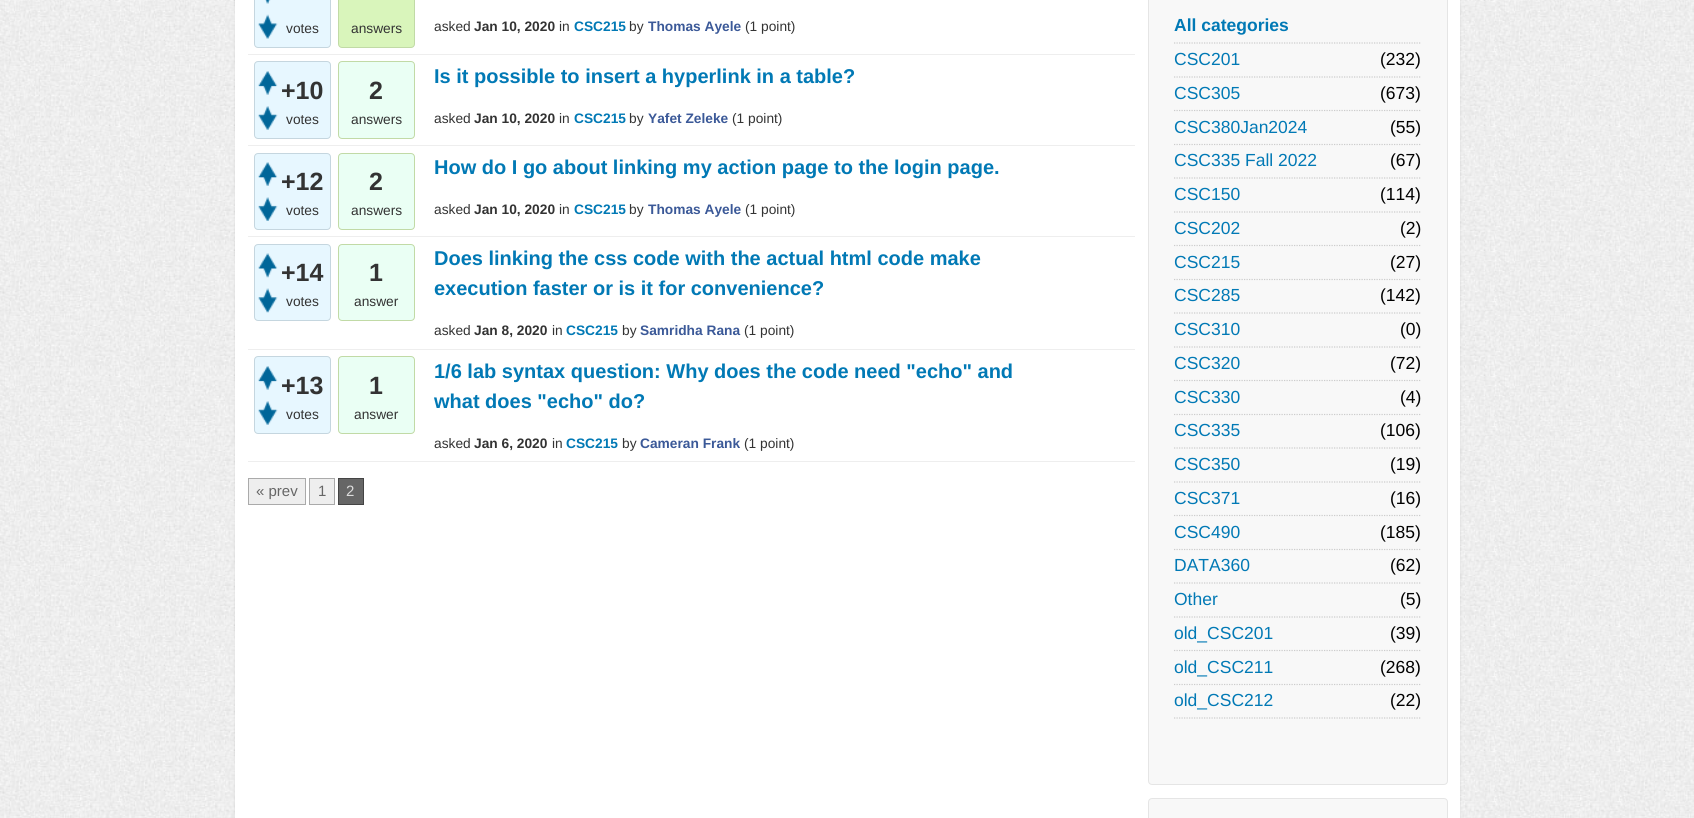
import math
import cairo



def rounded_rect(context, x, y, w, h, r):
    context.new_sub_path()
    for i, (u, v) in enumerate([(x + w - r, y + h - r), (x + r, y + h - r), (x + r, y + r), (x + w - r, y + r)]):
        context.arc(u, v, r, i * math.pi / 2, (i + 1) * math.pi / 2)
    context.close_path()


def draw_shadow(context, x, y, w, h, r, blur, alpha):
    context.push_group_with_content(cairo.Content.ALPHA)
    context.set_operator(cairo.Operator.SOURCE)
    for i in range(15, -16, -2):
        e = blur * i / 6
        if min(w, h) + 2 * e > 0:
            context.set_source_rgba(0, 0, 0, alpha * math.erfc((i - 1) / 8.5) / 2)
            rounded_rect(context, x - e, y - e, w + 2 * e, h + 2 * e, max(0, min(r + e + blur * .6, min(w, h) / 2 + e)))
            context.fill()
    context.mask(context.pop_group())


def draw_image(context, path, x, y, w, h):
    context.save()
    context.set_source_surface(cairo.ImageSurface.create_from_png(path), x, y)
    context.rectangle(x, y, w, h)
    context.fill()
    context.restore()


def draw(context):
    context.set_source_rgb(1, 1, 1)
    context.paint()
    draw_image(context, "images/1.png", 0, 0, 1694, 818)
    context.set_source_rgb(0, 0, 0)
    draw_shadow(context, 235, -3, 1225, 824, 0, 1, 0.1)
    context.set_source_rgb(1, 1, 1)
    context.rectangle(235, 0, 1225, 818)
    context.fill()
    context.set_source_rgb(238 / 255, 238 / 255, 238 / 255)
    context.rectangle(248, 54, 887, 1)
    context.fill()
    context.set_source_rgb(231 / 255, 247 / 255, 1)
    rounded_rect(context, 254.5, -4.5, 76, 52, 3.5)
    context.fill_preserve()
    context.set_source_rgb(197 / 255, 214 / 255, 223 / 255)
    context.set_line_width(1)
    context.stroke()
    draw_image(context, "images/2.png", 265, 0, 6, 4)
    draw_image(context, "images/3.png", 258, 14, 20, 25)
    context.set_source_rgb(217 / 255, 245 / 255, 187 / 255)
    rounded_rect(context, 338.5, -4.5, 76, 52, 3.5)
    context.fill_preserve()
    context.set_source_rgb(193 / 255, 218 / 255, 166 / 255)
    context.stroke()
    context.set_source_rgb(238 / 255, 238 / 255, 238 / 255)
    context.rectangle(248, 145, 887, 1)
    context.fill()
    context.set_source_rgb(231 / 255, 247 / 255, 1)
    rounded_rect(context, 254.5, 61.5, 76, 77, 3.5)
    context.fill_preserve()
    context.set_source_rgb(197 / 255, 214 / 255, 223 / 255)
    context.stroke()
    draw_image(context, "images/4.png", 258, 71, 20, 24)
    draw_image(context, "images/5.png", 258, 106, 20, 24)
    context.set_source_rgb(234 / 255, 1, 244 / 255)
    rounded_rect(context, 338.5, 61.5, 76, 77, 3.5)
    context.fill_preserve()
    context.set_source_rgb(193 / 255, 218 / 255, 166 / 255)
    context.stroke()
    context.set_source_rgb(238 / 255, 238 / 255, 238 / 255)
    context.rectangle(248, 236, 887, 1)
    context.fill()
    context.set_source_rgb(231 / 255, 247 / 255, 1)
    rounded_rect(context, 254.5, 153.5, 76, 76, 3.5)
    context.fill_preserve()
    context.set_source_rgb(197 / 255, 214 / 255, 223 / 255)
    context.stroke()
    draw_image(context, "images/6.png", 258, 162, 20, 24)
    draw_image(context, "images/7.png", 258, 197, 20, 24)
    context.set_source_rgb(234 / 255, 1, 244 / 255)
    rounded_rect(context, 338.5, 153.5, 76, 76, 3.5)
    context.fill_preserve()
    context.set_source_rgb(193 / 255, 218 / 255, 166 / 255)
    context.stroke()
    context.set_source_rgb(238 / 255, 238 / 255, 238 / 255)
    context.rectangle(248, 349, 887, 1)
    context.fill()
    context.set_source_rgb(231 / 255, 247 / 255, 1)
    rounded_rect(context, 254.5, 244.5, 76, 76, 3.5)
    context.fill_preserve()
    context.set_source_rgb(197 / 255, 214 / 255, 223 / 255)
    context.stroke()
    draw_image(context, "images/8.png", 258, 253, 20, 25)
    draw_image(context, "images/9.png", 258, 288, 20, 25)
    context.set_source_rgb(234 / 255, 1, 244 / 255)
    rounded_rect(context, 338.5, 244.5, 76, 76, 3.5)
    context.fill_preserve()
    context.set_source_rgb(193 / 255, 218 / 255, 166 / 255)
    context.stroke()
    context.set_source_rgb(238 / 255, 238 / 255, 238 / 255)
    context.rectangle(248, 461, 887, 1)
    context.fill()
    context.set_source_rgb(231 / 255, 247 / 255, 1)
    rounded_rect(context, 254.5, 356.5, 76, 77, 3.5)
    context.fill_preserve()
    context.set_source_rgb(197 / 255, 214 / 255, 223 / 255)
    context.stroke()
    draw_image(context, "images/4.png", 258, 366, 20, 24)
    draw_image(context, "images/5.png", 258, 401, 20, 24)
    context.set_source_rgb(234 / 255, 1, 244 / 255)
    rounded_rect(context, 338.5, 356.5, 76, 77, 3.5)
    context.fill_preserve()
    context.set_source_rgb(193 / 255, 218 / 255, 166 / 255)
    context.stroke()
    context.set_source_rgb(238 / 255, 238 / 255, 238 / 255)
    context.rectangle(248.5, 478.5, 57, 26)
    context.fill_preserve()
    context.set_source_rgb(170 / 255, 170 / 255, 170 / 255)
    context.stroke()
    context.set_source_rgb(238 / 255, 238 / 255, 238 / 255)
    context.rectangle(309.5, 478.5, 25, 26)
    context.fill_preserve()
    context.set_source_rgb(170 / 255, 170 / 255, 170 / 255)
    context.stroke()
    context.set_source_rgb(102 / 255, 102 / 255, 102 / 255)
    context.rectangle(338.5, 478.5, 25, 26)
    context.fill_preserve()
    context.set_source_rgb(68 / 255, 68 / 255, 68 / 255)
    context.stroke()
    context.set_source_rgb(248 / 255, 248 / 255, 248 / 255)
    rounded_rect(context, 1148.5, -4.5, 299, 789, 3.5)
    context.fill_preserve()
    context.set_source_rgb(229 / 255, 229 / 255, 229 / 255)
    context.stroke()
    context.new_path()
    context.move_to(1174, 43)
    context.line_to(1421, 43)
    context.set_source_rgb(204 / 255, 204 / 255, 204 / 255)
    context.set_line_width(1.2)
    context.set_dash([1.25, 1.25])
    context.stroke()
    context.new_path()
    context.move_to(1174, 77)
    context.line_to(1421, 77)
    context.stroke()
    context.new_path()
    context.move_to(1174, 110.5)
    context.line_to(1421, 110.5)
    context.stroke()
    context.new_path()
    context.move_to(1174, 144.5)
    context.line_to(1421, 144.5)
    context.stroke()
    context.new_path()
    context.move_to(1174, 178)
    context.line_to(1421, 178)
    context.stroke()
    context.new_path()
    context.move_to(1174, 212)
    context.line_to(1421, 212)
    context.stroke()
    context.new_path()
    context.move_to(1174, 245.5)
    context.line_to(1421, 245.5)
    context.stroke()
    context.new_path()
    context.move_to(1174, 279.5)
    context.line_to(1421, 279.5)
    context.stroke()
    context.new_path()
    context.move_to(1174, 313)
    context.line_to(1421, 313)
    context.stroke()
    context.new_path()
    context.move_to(1174, 347)
    context.line_to(1421, 347)
    context.stroke()
    context.new_path()
    context.move_to(1174, 380.5)
    context.line_to(1421, 380.5)
    context.stroke()
    context.new_path()
    context.move_to(1174, 414.5)
    context.line_to(1421, 414.5)
    context.stroke()
    context.new_path()
    context.move_to(1174, 448)
    context.line_to(1421, 448)
    context.stroke()
    context.new_path()
    context.move_to(1174, 482)
    context.line_to(1421, 482)
    context.stroke()
    context.new_path()
    context.move_to(1174, 515.5)
    context.line_to(1421, 515.5)
    context.stroke()
    context.new_path()
    context.move_to(1174, 549.5)
    context.line_to(1421, 549.5)
    context.stroke()
    context.new_path()
    context.move_to(1174, 583)
    context.line_to(1421, 583)
    context.stroke()
    context.new_path()
    context.move_to(1174, 617)
    context.line_to(1421, 617)
    context.stroke()
    context.new_path()
    context.move_to(1174, 650.5)
    context.line_to(1421, 650.5)
    context.stroke()
    context.new_path()
    context.move_to(1174, 684.5)
    context.line_to(1421, 684.5)
    context.stroke()
    context.new_path()
    context.move_to(1174, 718)
    context.line_to(1421, 718)
    context.stroke()
    context.set_source_rgb(248 / 255, 248 / 255, 248 / 255)
    rounded_rect(context, 1148.5, 798.5, 299, 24, 3.5)
    context.fill_preserve()
    context.set_source_rgb(229 / 255, 229 / 255, 229 / 255)
    context.set_line_width(1)
    context.set_dash([])
    context.stroke()
    context.select_font_face("Liberation Sans")
    context.set_font_size(13.75)
    context.set_source_rgb(51 / 255, 51 / 255, 51 / 255)
    context.move_to(286, 33)
    context.show_text("votes")
    context.move_to(351, 33)
    context.show_text("answers")
    context.move_to(434, 31)
    context.show_text("asked")
    context.select_font_face("Liberation Sans", cairo.FontSlant.NORMAL, cairo.FontWeight.BOLD)
    context.move_to(474, 31)
    context.show_text("Jan 10, 2020")
    context.select_font_face("Liberation Sans")
    context.move_to(559, 31)
    context.show_text("in")
    context.select_font_face("Liberation Sans", cairo.FontSlant.NORMAL, cairo.FontWeight.BOLD)
    context.set_source_rgb(1 / 255, 121 / 255, 181 / 255)
    context.move_to(574, 31)
    context.show_text("CSC215")
    context.select_font_face("Liberation Sans")
    context.set_source_rgb(51 / 255, 51 / 255, 51 / 255)
    context.move_to(629, 31)
    context.show_text("by")
    context.select_font_face("Liberation Sans", cairo.FontSlant.NORMAL, cairo.FontWeight.BOLD)
    context.set_source_rgb(59 / 255, 89 / 255, 152 / 255)
    context.move_to(648, 31)
    context.show_text("Thomas Ayele")
    context.select_font_face("Liberation Sans")
    context.set_source_rgb(51 / 255, 51 / 255, 51 / 255)
    context.move_to(745, 31)
    context.show_text("(1 point)")
    context.select_font_face("Liberation Sans", cairo.FontSlant.NORMAL, cairo.FontWeight.BOLD)
    context.set_font_size(25)
    context.move_to(281, 99)
    context.show_text("+10")
    context.select_font_face("Liberation Sans")
    context.set_font_size(13.75)
    context.move_to(286, 124)
    context.show_text("votes")
    context.select_font_face("Liberation Sans", cairo.FontSlant.NORMAL, cairo.FontWeight.BOLD)
    context.set_font_size(25)
    context.move_to(369, 99)
    context.show_text("2")
    context.select_font_face("Liberation Sans")
    context.set_font_size(13.75)
    context.move_to(351, 124)
    context.show_text("answers")
    context.select_font_face("Liberation Sans", cairo.FontSlant.NORMAL, cairo.FontWeight.BOLD)
    context.set_font_size(20)
    context.set_source_rgb(1 / 255, 121 / 255, 181 / 255)
    context.move_to(434, 83)
    context.show_text("Is it possible to insert a hyperlink in a table?")
    context.select_font_face("Liberation Sans")
    context.set_font_size(13.75)
    context.set_source_rgb(51 / 255, 51 / 255, 51 / 255)
    context.move_to(434, 123)
    context.show_text("asked")
    context.select_font_face("Liberation Sans", cairo.FontSlant.NORMAL, cairo.FontWeight.BOLD)
    context.move_to(474, 123)
    context.show_text("Jan 10, 2020")
    context.select_font_face("Liberation Sans")
    context.move_to(559, 123)
    context.show_text("in")
    context.select_font_face("Liberation Sans", cairo.FontSlant.NORMAL, cairo.FontWeight.BOLD)
    context.set_source_rgb(1 / 255, 121 / 255, 181 / 255)
    context.move_to(574, 123)
    context.show_text("CSC215")
    context.select_font_face("Liberation Sans")
    context.set_source_rgb(51 / 255, 51 / 255, 51 / 255)
    context.move_to(629, 123)
    context.show_text("by")
    context.select_font_face("Liberation Sans", cairo.FontSlant.NORMAL, cairo.FontWeight.BOLD)
    context.set_source_rgb(59 / 255, 89 / 255, 152 / 255)
    context.move_to(648, 123)
    context.show_text("Yafet Zeleke")
    context.select_font_face("Liberation Sans")
    context.set_source_rgb(51 / 255, 51 / 255, 51 / 255)
    context.move_to(732, 123)
    context.show_text("(1 point)")
    context.select_font_face("Liberation Sans", cairo.FontSlant.NORMAL, cairo.FontWeight.BOLD)
    context.set_font_size(25)
    context.move_to(281, 190)
    context.show_text("+12")
    context.select_font_face("Liberation Sans")
    context.set_font_size(13.75)
    context.move_to(286, 215)
    context.show_text("votes")
    context.select_font_face("Liberation Sans", cairo.FontSlant.NORMAL, cairo.FontWeight.BOLD)
    context.set_font_size(25)
    context.move_to(369, 190)
    context.show_text("2")
    context.select_font_face("Liberation Sans")
    context.set_font_size(13.75)
    context.move_to(351, 215)
    context.show_text("answers")
    context.select_font_face("Liberation Sans", cairo.FontSlant.NORMAL, cairo.FontWeight.BOLD)
    context.set_font_size(20)
    context.set_source_rgb(1 / 255, 121 / 255, 181 / 255)
    context.move_to(434, 174)
    context.show_text("How do I go about linking my action page to the login page.")
    context.select_font_face("Liberation Sans")
    context.set_font_size(13.75)
    context.set_source_rgb(51 / 255, 51 / 255, 51 / 255)
    context.move_to(434, 214)
    context.show_text("asked")
    context.select_font_face("Liberation Sans", cairo.FontSlant.NORMAL, cairo.FontWeight.BOLD)
    context.move_to(474, 214)
    context.show_text("Jan 10, 2020")
    context.select_font_face("Liberation Sans")
    context.move_to(559, 214)
    context.show_text("in")
    context.select_font_face("Liberation Sans", cairo.FontSlant.NORMAL, cairo.FontWeight.BOLD)
    context.set_source_rgb(1 / 255, 121 / 255, 181 / 255)
    context.move_to(574, 214)
    context.show_text("CSC215")
    context.select_font_face("Liberation Sans")
    context.set_source_rgb(51 / 255, 51 / 255, 51 / 255)
    context.move_to(629, 214)
    context.show_text("by")
    context.select_font_face("Liberation Sans", cairo.FontSlant.NORMAL, cairo.FontWeight.BOLD)
    context.set_source_rgb(59 / 255, 89 / 255, 152 / 255)
    context.move_to(648, 214)
    context.show_text("Thomas Ayele")
    context.select_font_face("Liberation Sans")
    context.set_source_rgb(51 / 255, 51 / 255, 51 / 255)
    context.move_to(745, 214)
    context.show_text("(1 point)")
    context.select_font_face("Liberation Sans", cairo.FontSlant.NORMAL, cairo.FontWeight.BOLD)
    context.set_font_size(25)
    context.move_to(281, 281)
    context.show_text("+14")
    context.select_font_face("Liberation Sans")
    context.set_font_size(13.75)
    context.move_to(286, 306)
    context.show_text("votes")
    context.select_font_face("Liberation Sans", cairo.FontSlant.NORMAL, cairo.FontWeight.BOLD)
    context.set_font_size(25)
    context.move_to(369, 281)
    context.show_text("1")
    context.select_font_face("Liberation Sans")
    context.set_font_size(13.75)
    context.move_to(354, 306)
    context.show_text("answer")
    context.select_font_face("Liberation Sans", cairo.FontSlant.NORMAL, cairo.FontWeight.BOLD)
    context.set_font_size(20)
    context.set_source_rgb(1 / 255, 121 / 255, 181 / 255)
    context.move_to(434, 265)
    context.show_text("Does linking the css code with the actual html code make")
    context.move_to(434, 295)
    context.show_text("execution faster or is it for convenience?")
    context.select_font_face("Liberation Sans")
    context.set_font_size(13.75)
    context.set_source_rgb(51 / 255, 51 / 255, 51 / 255)
    context.move_to(434, 335)
    context.show_text("asked")
    context.select_font_face("Liberation Sans", cairo.FontSlant.NORMAL, cairo.FontWeight.BOLD)
    context.move_to(474, 335)
    context.show_text("Jan 8, 2020")
    context.select_font_face("Liberation Sans")
    context.move_to(552, 335)
    context.show_text("in")
    context.select_font_face("Liberation Sans", cairo.FontSlant.NORMAL, cairo.FontWeight.BOLD)
    context.set_source_rgb(1 / 255, 121 / 255, 181 / 255)
    context.move_to(566, 335)
    context.show_text("CSC215")
    context.select_font_face("Liberation Sans")
    context.set_source_rgb(51 / 255, 51 / 255, 51 / 255)
    context.move_to(622, 335)
    context.show_text("by")
    context.select_font_face("Liberation Sans", cairo.FontSlant.NORMAL, cairo.FontWeight.BOLD)
    context.set_source_rgb(59 / 255, 89 / 255, 152 / 255)
    context.move_to(640, 335)
    context.show_text("Samridha Rana")
    context.select_font_face("Liberation Sans")
    context.set_source_rgb(51 / 255, 51 / 255, 51 / 255)
    context.move_to(744, 335)
    context.show_text("(1 point)")
    context.select_font_face("Liberation Sans", cairo.FontSlant.NORMAL, cairo.FontWeight.BOLD)
    context.set_font_size(25)
    context.move_to(281, 394)
    context.show_text("+13")
    context.select_font_face("Liberation Sans")
    context.set_font_size(13.75)
    context.move_to(286, 419)
    context.show_text("votes")
    context.select_font_face("Liberation Sans", cairo.FontSlant.NORMAL, cairo.FontWeight.BOLD)
    context.set_font_size(25)
    context.move_to(369, 394)
    context.show_text("1")
    context.select_font_face("Liberation Sans")
    context.set_font_size(13.75)
    context.move_to(354, 419)
    context.show_text("answer")
    context.select_font_face("Liberation Sans", cairo.FontSlant.NORMAL, cairo.FontWeight.BOLD)
    context.set_font_size(20)
    context.set_source_rgb(1 / 255, 121 / 255, 181 / 255)
    context.move_to(434, 378)
    context.show_text("1/6 lab syntax question: Why does the code need \"echo\" and")
    context.move_to(434, 408)
    context.show_text("what does \"echo\" do?")
    context.select_font_face("Liberation Sans")
    context.set_font_size(13.75)
    context.set_source_rgb(51 / 255, 51 / 255, 51 / 255)
    context.move_to(434, 448)
    context.show_text("asked")
    context.select_font_face("Liberation Sans", cairo.FontSlant.NORMAL, cairo.FontWeight.BOLD)
    context.move_to(474, 448)
    context.show_text("Jan 6, 2020")
    context.select_font_face("Liberation Sans")
    context.move_to(552, 448)
    context.show_text("in")
    context.select_font_face("Liberation Sans", cairo.FontSlant.NORMAL, cairo.FontWeight.BOLD)
    context.set_source_rgb(1 / 255, 121 / 255, 181 / 255)
    context.move_to(566, 448)
    context.show_text("CSC215")
    context.select_font_face("Liberation Sans")
    context.set_source_rgb(51 / 255, 51 / 255, 51 / 255)
    context.move_to(622, 448)
    context.show_text("by")
    context.select_font_face("Liberation Sans", cairo.FontSlant.NORMAL, cairo.FontWeight.BOLD)
    context.set_source_rgb(59 / 255, 89 / 255, 152 / 255)
    context.move_to(640, 448)
    context.show_text("Cameran Frank")
    context.select_font_face("Liberation Sans")
    context.set_source_rgb(51 / 255, 51 / 255, 51 / 255)
    context.move_to(744, 448)
    context.show_text("(1 point)")
    context.set_font_size(15)
    context.set_source_rgb(102 / 255, 102 / 255, 102 / 255)
    context.move_to(256, 496)
    context.show_text("« prev")
    context.move_to(318, 496)
    context.show_text("1")
    context.set_source_rgb(221 / 255, 221 / 255, 221 / 255)
    context.move_to(346, 496)
    context.show_text("2")
    context.select_font_face("Liberation Sans", cairo.FontSlant.NORMAL, cairo.FontWeight.BOLD)
    context.set_font_size(17.5)
    context.set_source_rgb(1 / 255, 121 / 255, 181 / 255)
    context.move_to(1174, 31)
    context.show_text("All categories")
    context.select_font_face("Liberation Sans")
    context.move_to(1174, 65)
    context.show_text("CSC201")
    context.set_source_rgb(0, 0, 0)
    context.move_to(1380, 65)
    context.show_text("(232)")
    context.set_source_rgb(1 / 255, 121 / 255, 181 / 255)
    context.move_to(1174, 99)
    context.show_text("CSC305")
    context.set_source_rgb(0, 0, 0)
    context.move_to(1380, 99)
    context.show_text("(673)")
    context.set_source_rgb(1 / 255, 121 / 255, 181 / 255)
    context.move_to(1174, 133)
    context.show_text("CSC380Jan2024")
    context.set_source_rgb(0, 0, 0)
    context.move_to(1390, 133)
    context.show_text("(55)")
    context.set_source_rgb(1 / 255, 121 / 255, 181 / 255)
    context.move_to(1174, 166)
    context.show_text("CSC335 Fall 2022")
    context.set_source_rgb(0, 0, 0)
    context.move_to(1390, 166)
    context.show_text("(67)")
    context.set_source_rgb(1 / 255, 121 / 255, 181 / 255)
    context.move_to(1174, 200)
    context.show_text("CSC150")
    context.set_source_rgb(0, 0, 0)
    context.move_to(1380, 200)
    context.show_text("(114)")
    context.set_source_rgb(1 / 255, 121 / 255, 181 / 255)
    context.move_to(1174, 234)
    context.show_text("CSC202")
    context.set_source_rgb(0, 0, 0)
    context.move_to(1400, 234)
    context.show_text("(2)")
    context.set_source_rgb(1 / 255, 121 / 255, 181 / 255)
    context.move_to(1174, 268)
    context.show_text("CSC215")
    context.set_source_rgb(0, 0, 0)
    context.move_to(1390, 268)
    context.show_text("(27)")
    context.set_source_rgb(1 / 255, 121 / 255, 181 / 255)
    context.move_to(1174, 301)
    context.show_text("CSC285")
    context.set_source_rgb(0, 0, 0)
    context.move_to(1380, 301)
    context.show_text("(142)")
    context.set_source_rgb(1 / 255, 121 / 255, 181 / 255)
    context.move_to(1174, 335)
    context.show_text("CSC310")
    context.set_source_rgb(0, 0, 0)
    context.move_to(1400, 335)
    context.show_text("(0)")
    context.set_source_rgb(1 / 255, 121 / 255, 181 / 255)
    context.move_to(1174, 369)
    context.show_text("CSC320")
    context.set_source_rgb(0, 0, 0)
    context.move_to(1390, 369)
    context.show_text("(72)")
    context.set_source_rgb(1 / 255, 121 / 255, 181 / 255)
    context.move_to(1174, 403)
    context.show_text("CSC330")
    context.set_source_rgb(0, 0, 0)
    context.move_to(1400, 403)
    context.show_text("(4)")
    context.set_source_rgb(1 / 255, 121 / 255, 181 / 255)
    context.move_to(1174, 436)
    context.show_text("CSC335")
    context.set_source_rgb(0, 0, 0)
    context.move_to(1380, 436)
    context.show_text("(106)")
    context.set_source_rgb(1 / 255, 121 / 255, 181 / 255)
    context.move_to(1174, 470)
    context.show_text("CSC350")
    context.set_source_rgb(0, 0, 0)
    context.move_to(1390, 470)
    context.show_text("(19)")
    context.set_source_rgb(1 / 255, 121 / 255, 181 / 255)
    context.move_to(1174, 504)
    context.show_text("CSC371")
    context.set_source_rgb(0, 0, 0)
    context.move_to(1390, 504)
    context.show_text("(16)")
    context.set_source_rgb(1 / 255, 121 / 255, 181 / 255)
    context.move_to(1174, 538)
    context.show_text("CSC490")
    context.set_source_rgb(0, 0, 0)
    context.move_to(1380, 538)
    context.show_text("(185)")
    context.set_source_rgb(1 / 255, 121 / 255, 181 / 255)
    context.move_to(1174, 571)
    context.show_text("DATA360")
    context.set_source_rgb(0, 0, 0)
    context.move_to(1390, 571)
    context.show_text("(62)")
    context.set_source_rgb(1 / 255, 121 / 255, 181 / 255)
    context.move_to(1174, 605)
    context.show_text("Other")
    context.set_source_rgb(0, 0, 0)
    context.move_to(1400, 605)
    context.show_text("(5)")
    context.set_source_rgb(1 / 255, 121 / 255, 181 / 255)
    context.move_to(1174, 639)
    context.show_text("old_CSC201")
    context.set_source_rgb(0, 0, 0)
    context.move_to(1390, 639)
    context.show_text("(39)")
    context.set_source_rgb(1 / 255, 121 / 255, 181 / 255)
    context.move_to(1174, 673)
    context.show_text("old_CSC211")
    context.set_source_rgb(0, 0, 0)
    context.move_to(1380, 673)
    context.show_text("(268)")
    context.set_source_rgb(1 / 255, 121 / 255, 181 / 255)
    context.move_to(1174, 706)
    context.show_text("old_CSC212")
    context.set_source_rgb(0, 0, 0)
    context.move_to(1390, 706)
    context.show_text("(22)")


surface = cairo.ImageSurface(cairo.Format.RGB24, 1694, 818)
context = cairo.Context(surface)
options = cairo.FontOptions()
options.set_hint_metrics(cairo.HintMetrics.OFF)
options.set_hint_style(cairo.HintStyle.NONE)
context.set_font_options(options)
context.set_miter_limit(4)
draw(context)
surface.write_to_png("out.png")
